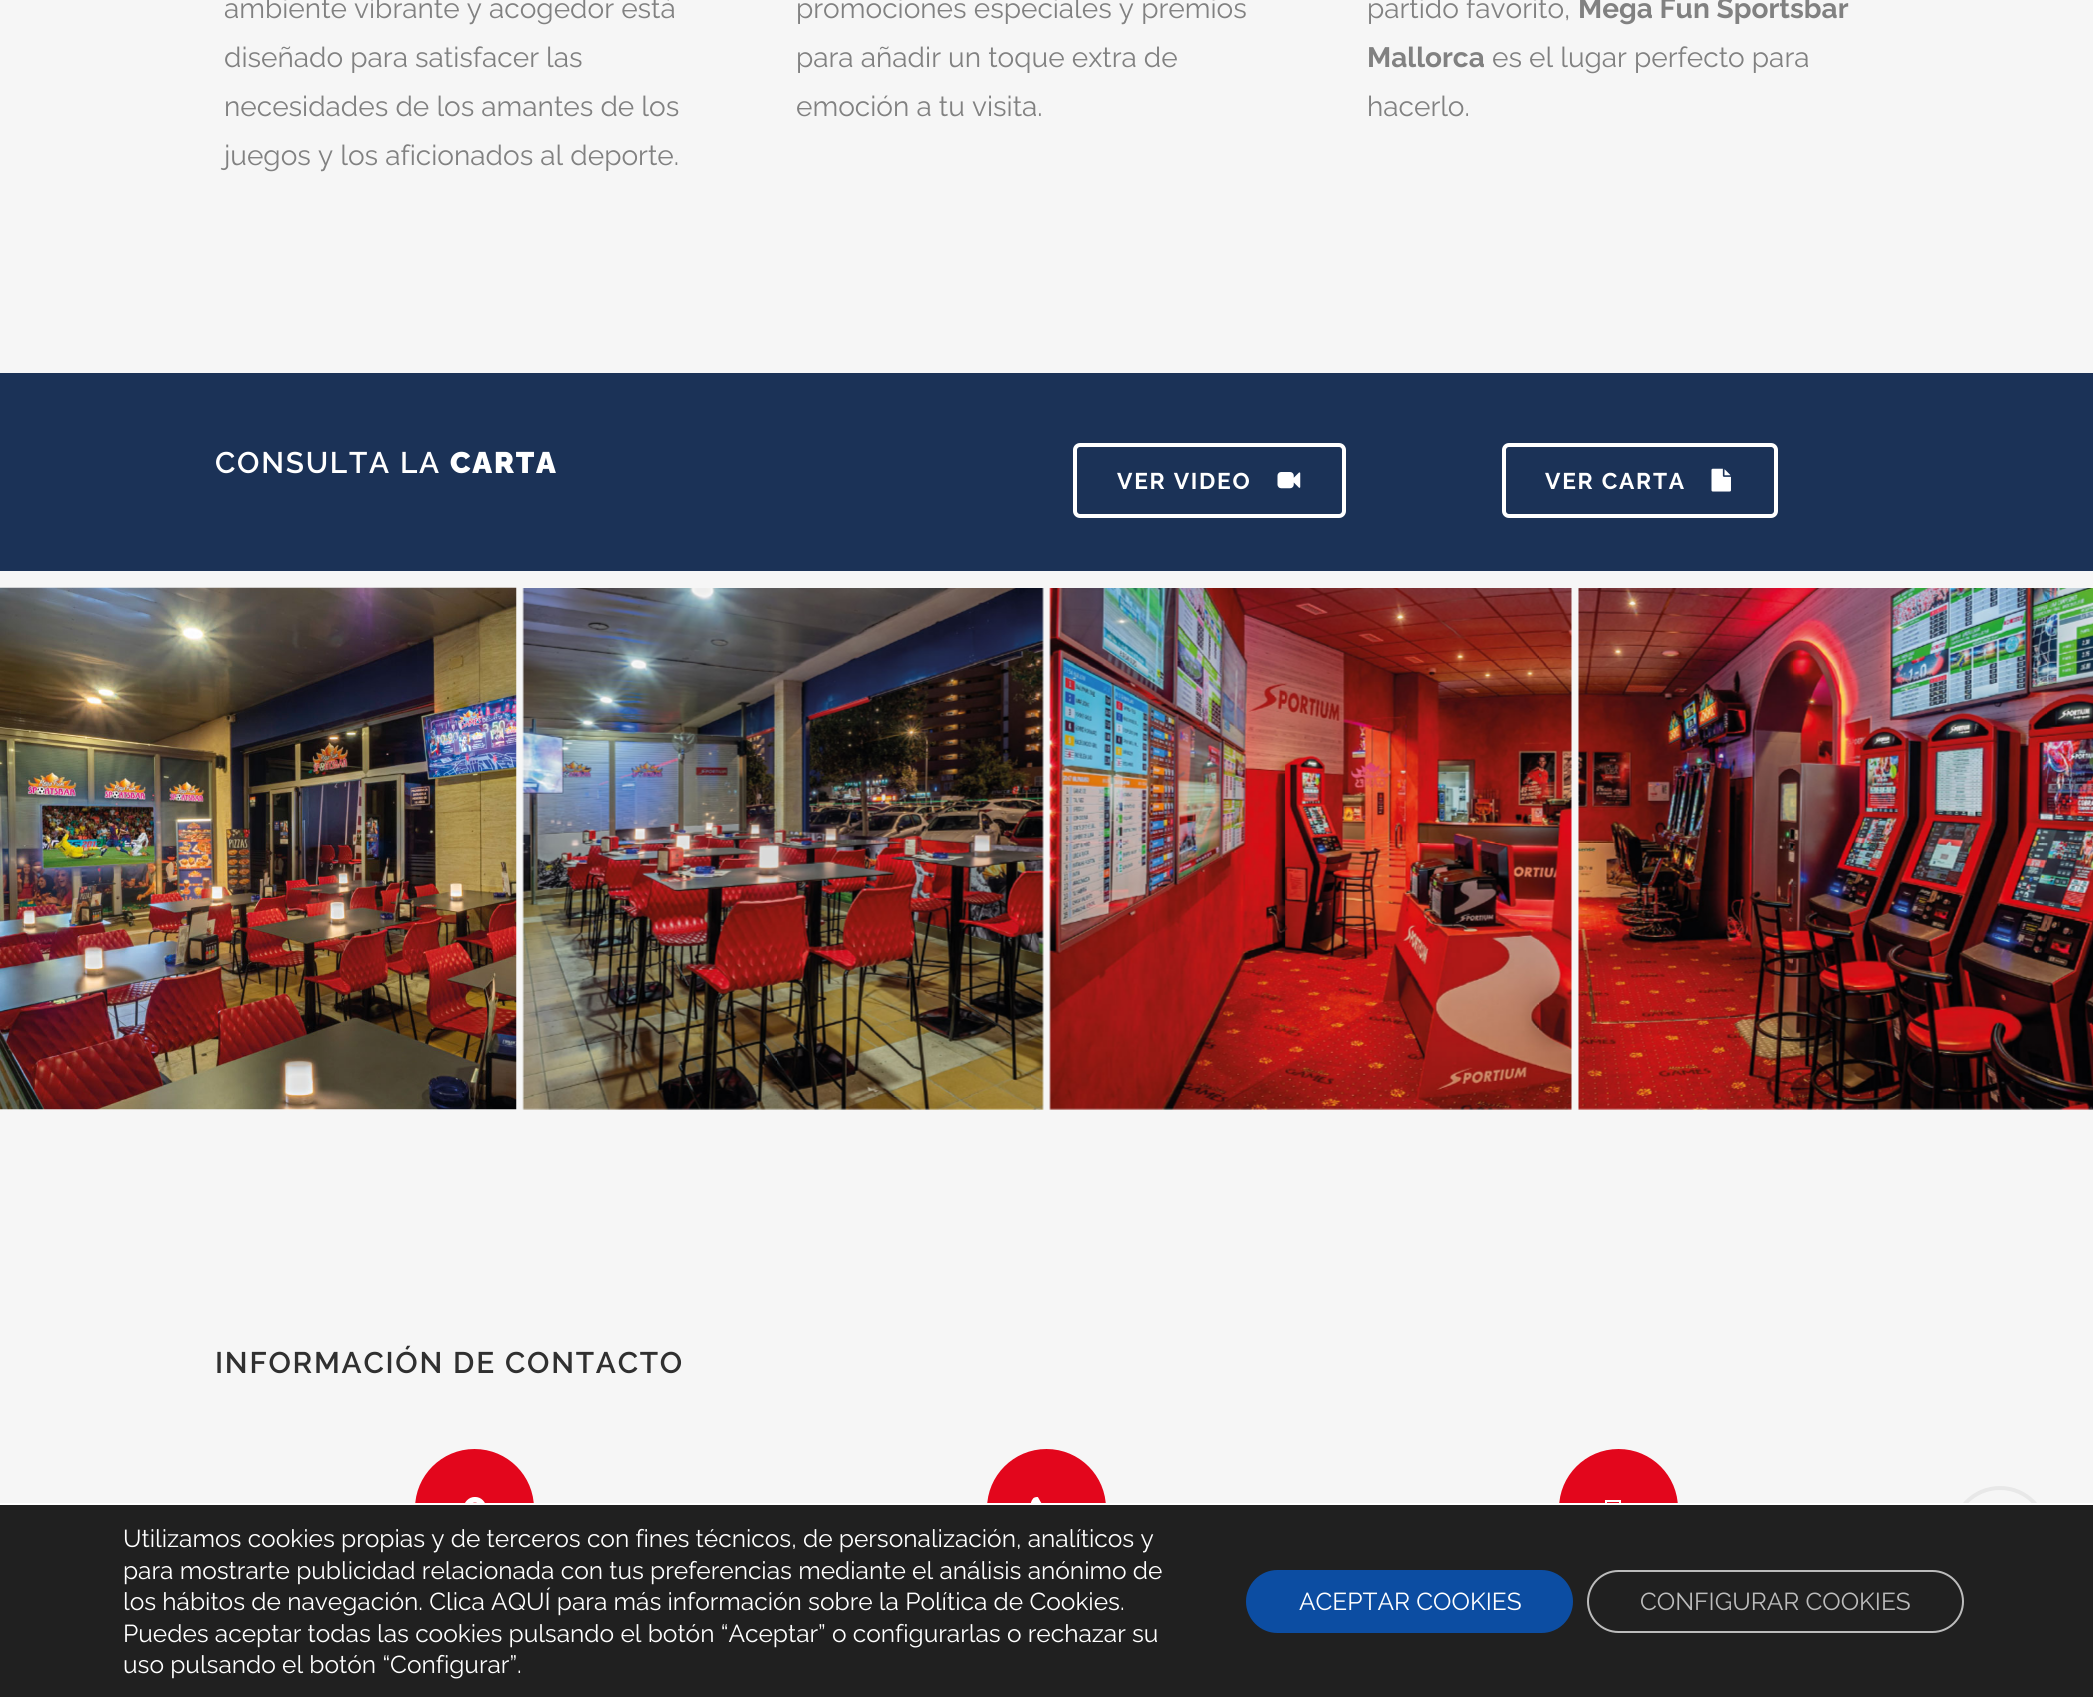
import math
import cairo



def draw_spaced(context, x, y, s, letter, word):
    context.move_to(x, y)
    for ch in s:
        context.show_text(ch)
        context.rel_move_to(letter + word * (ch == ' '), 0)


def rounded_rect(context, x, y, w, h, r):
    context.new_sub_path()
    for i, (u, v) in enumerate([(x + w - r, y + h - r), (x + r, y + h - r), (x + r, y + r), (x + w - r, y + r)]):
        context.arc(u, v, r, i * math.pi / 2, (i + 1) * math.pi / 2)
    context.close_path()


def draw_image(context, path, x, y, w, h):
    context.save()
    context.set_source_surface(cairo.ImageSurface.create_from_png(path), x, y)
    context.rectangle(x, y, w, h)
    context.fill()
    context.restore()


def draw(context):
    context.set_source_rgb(246 / 255, 246 / 255, 246 / 255)
    context.paint()
    context.set_source_rgb(27 / 255, 50 / 255, 87 / 255)
    context.rectangle(0, 373, 2093, 198)
    context.fill()
    rounded_rect(context, 1075, 445, 269, 71, 5)
    context.set_source_rgb(1, 1, 1)
    context.set_line_width(4)
    context.stroke()
    draw_image(context, "images/1.png", 1277, 472, 24, 17)
    rounded_rect(context, 1504, 445, 272, 71, 5)
    context.stroke()
    draw_image(context, "images/2.png", 1711, 468, 20, 24)
    draw_image(context, "images/3.png", 0, 587, 517, 523)
    draw_image(context, "images/4.png", 522, 588, 522, 522)
    draw_image(context, "images/5.png", 1049, 588, 523, 522)
    draw_image(context, "images/6.png", 1578, 588, 515, 522)
    context.set_source_rgb(227 / 255, 6 / 255, 28 / 255)
    context.arc(474.5, 1508.5, 57.5, 0, 2 * math.pi)
    context.fill_preserve()
    context.stroke()
    draw_image(context, "images/7.png", 465, 1497, 20, 6)
    context.arc(1046.5, 1508.5, 57.5, 0, 2 * math.pi)
    context.fill_preserve()
    context.stroke()
    draw_image(context, "images/8.png", 1031, 1497, 11, 6)
    context.arc(1618.5, 1508.5, 57.5, 0, 2 * math.pi)
    context.fill_preserve()
    context.stroke()
    context.set_source_rgb(1, 1, 1)
    context.new_path()
    context.move_to(1605, 1528)
    context.line_to(1605, 1500)
    context.line_to(1621, 1500)
    context.line_to(1621, 1528)
    context.close_path()
    context.move_to(1607, 1526)
    context.line_to(1619, 1526)
    context.line_to(1619, 1502)
    context.line_to(1607, 1502)
    context.close_path()
    context.fill()
    context.arc(2000, 1535, 47, 0, 2 * math.pi)
    context.set_source_rgb(232 / 255, 232 / 255, 232 / 255)
    context.stroke()
    context.set_source_rgb(32 / 255, 32 / 255, 32 / 255)
    context.rectangle(0, 1505, 2093, 192)
    context.fill()
    context.set_source_rgb(1, 1, 1)
    context.rectangle(0, 1503, 2093, 2)
    context.fill()
    context.set_source_rgb(12 / 255, 77 / 255, 162 / 255)
    rounded_rect(context, 1246, 1570, 327, 63, 31.5)
    context.fill()
    rounded_rect(context, 1588, 1571, 375, 61, 30.5)
    context.set_source_rgb(188 / 255, 188 / 255, 188 / 255)
    context.set_line_width(2)
    context.stroke()
    context.select_font_face("Raleway")
    context.set_font_size(28)
    context.set_source_rgb(129 / 255, 129 / 255, 129 / 255)
    context.move_to(224, 18)
    context.show_text("ambiente vibrante y acogedor está")
    context.move_to(224, 67)
    context.show_text("diseñado para satisfacer las")
    context.move_to(224, 116)
    context.show_text("necesidades de los amantes de los")
    context.move_to(224, 165)
    context.show_text("juegos y los aficionados al deporte.")
    context.move_to(796, 18)
    context.show_text("promociones especiales y premios")
    context.move_to(796, 67)
    context.show_text("para añadir un toque extra de")
    context.move_to(796, 116)
    context.show_text("emoción a tu visita.")
    context.move_to(1367, 18)
    context.show_text("partido favorito,")
    context.select_font_face("Raleway", cairo.FontSlant.NORMAL, cairo.FontWeight.BOLD)
    context.move_to(1578, 18)
    context.show_text("Mega Fun Sportsbar")
    context.move_to(1367, 67)
    context.show_text("Mallorca")
    context.select_font_face("Raleway")
    context.move_to(1492, 67)
    context.show_text("es el lugar perfecto para")
    context.move_to(1367, 116)
    context.show_text("hacerlo.")
    context.select_font_face("Raleway SemiBold")
    context.set_font_size(29.75)
    context.set_source_rgb(1, 1, 1)
    draw_spaced(context, 215, 473, "CONSULTA LA", 1.75, 0)
    context.select_font_face("Raleway Black")
    draw_spaced(context, 450, 473, "CARTA", 1.75, 0)
    context.select_font_face("Raleway", cairo.FontSlant.NORMAL, cairo.FontWeight.BOLD)
    context.set_font_size(22.75)
    draw_spaced(context, 1117, 489, "VER VIDEO", 1.75, 0)
    draw_spaced(context, 1545, 489, "VER CARTA", 1.75, 0)
    context.select_font_face("Raleway SemiBold")
    context.set_font_size(29.75)
    context.set_source_rgb(48 / 255, 48 / 255, 48 / 255)
    draw_spaced(context, 215, 1373, "INFORMACIÓN DE CONTACTO", 1.75, 0)
    context.select_font_face("Raleway")
    context.set_font_size(24.5)
    context.set_source_rgb(1, 1, 1)
    context.move_to(123, 1547)
    context.show_text("Utilizamos cookies propias y de terceros con fines técnicos, de personalización, analíticos y")
    context.move_to(123, 1579)
    context.show_text("para mostrarte publicidad relacionada con tus preferencias mediante el análisis anónimo de")
    context.move_to(123, 1610)
    context.show_text("los hábitos de navegación. Clica AQUÍ para más información sobre la Política de Cookies.")
    context.move_to(123, 1642)
    context.show_text("Puedes aceptar todas las cookies pulsando el botón “Aceptar” o configurarlas o rechazar su")
    context.move_to(123, 1673)
    context.show_text("uso pulsando el botón “Configurar”.")
    context.move_to(1299, 1610)
    context.show_text("ACEPTAR COOKIES")
    context.set_source_rgb(188 / 255, 188 / 255, 188 / 255)
    context.move_to(1640, 1610)
    context.show_text("CONFIGURAR COOKIES")


surface = cairo.ImageSurface(cairo.Format.RGB24, 2093, 1697)
context = cairo.Context(surface)
options = cairo.FontOptions()
options.set_hint_metrics(cairo.HintMetrics.OFF)
options.set_hint_style(cairo.HintStyle.NONE)
context.set_font_options(options)
context.set_miter_limit(4)
draw(context)
surface.write_to_png("out.png")
